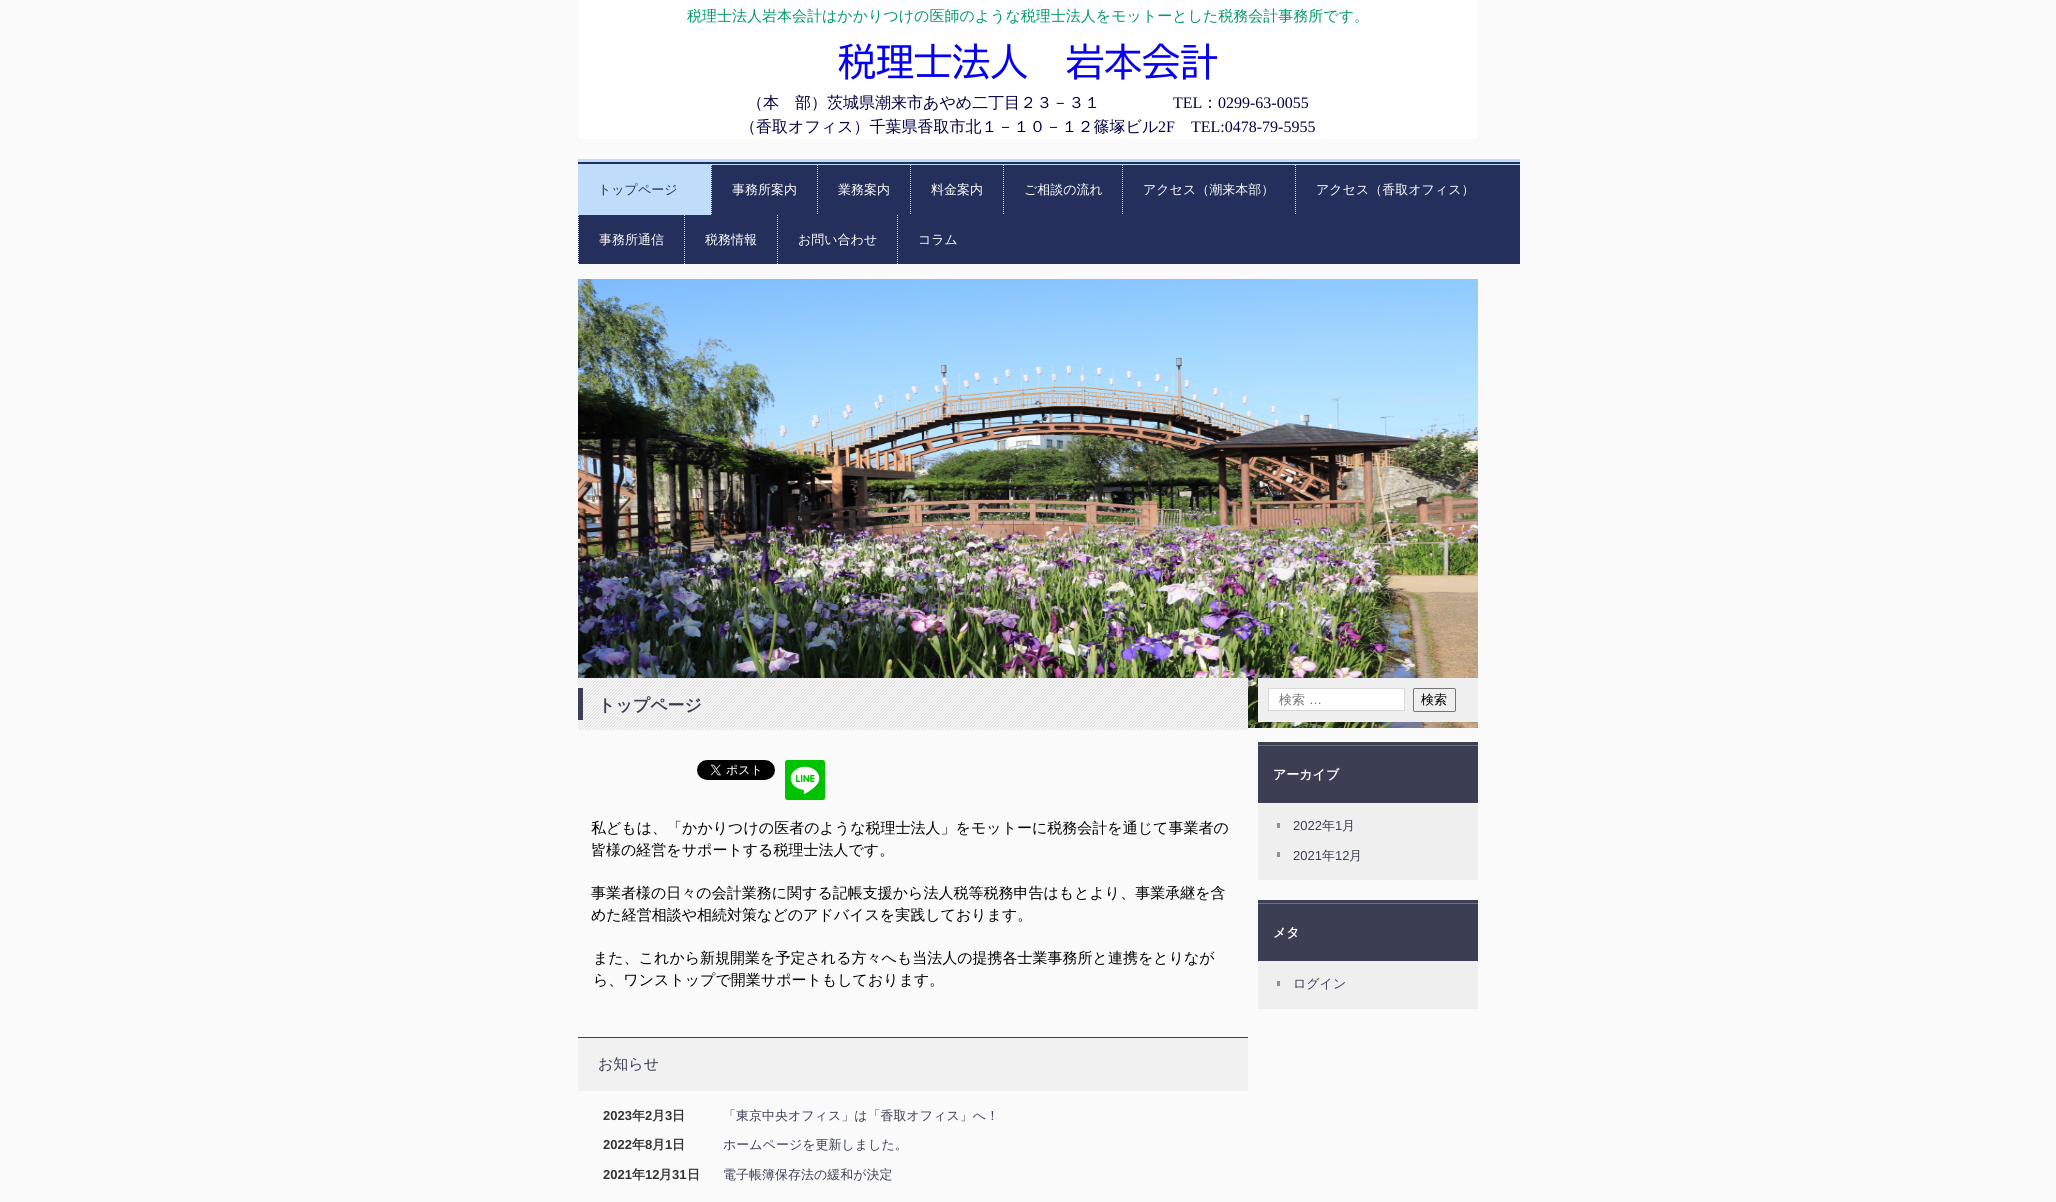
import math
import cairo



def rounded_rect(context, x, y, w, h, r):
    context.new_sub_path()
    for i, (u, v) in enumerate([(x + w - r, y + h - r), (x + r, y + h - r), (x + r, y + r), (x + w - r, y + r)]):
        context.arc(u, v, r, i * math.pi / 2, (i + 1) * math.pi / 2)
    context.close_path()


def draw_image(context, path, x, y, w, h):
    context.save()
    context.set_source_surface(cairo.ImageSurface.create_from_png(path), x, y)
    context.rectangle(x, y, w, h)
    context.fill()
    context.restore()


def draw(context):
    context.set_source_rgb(250 / 255, 250 / 255, 250 / 255)
    context.paint()
    context.set_source_rgb(1, 1, 1)
    context.rectangle(578, 0, 900, 139)
    context.fill()
    context.set_source_rgb(36 / 255, 47 / 255, 91 / 255)
    context.rectangle(578, 162, 942, 102)
    context.fill()
    context.set_source_rgb(191 / 255, 220 / 255, 250 / 255)
    context.rectangle(578, 159, 942, 3)
    context.fill()
    context.rectangle(578, 164, 942, 1)
    context.fill()
    context.rectangle(578, 165, 133, 50)
    context.fill()
    context.new_path()
    context.move_to(711.5, 165)
    context.line_to(711.5, 215)
    context.set_line_width(1)
    context.set_dash([1, 1])
    context.stroke()
    context.new_path()
    context.move_to(817.5, 165)
    context.line_to(817.5, 215)
    context.stroke()
    context.new_path()
    context.move_to(910.5, 165)
    context.line_to(910.5, 215)
    context.stroke()
    context.new_path()
    context.move_to(1003.5, 165)
    context.line_to(1003.5, 215)
    context.stroke()
    context.new_path()
    context.move_to(1122.5, 165)
    context.line_to(1122.5, 215)
    context.stroke()
    context.new_path()
    context.move_to(1295.5, 165)
    context.line_to(1295.5, 215)
    context.stroke()
    context.new_path()
    context.move_to(578.5, 215)
    context.line_to(578.5, 264)
    context.stroke()
    context.new_path()
    context.move_to(684.5, 215)
    context.line_to(684.5, 264)
    context.stroke()
    context.new_path()
    context.move_to(777.5, 215)
    context.line_to(777.5, 264)
    context.stroke()
    context.new_path()
    context.move_to(897.5, 215)
    context.line_to(897.5, 264)
    context.stroke()
    draw_image(context, "images/1.png", 578, 279, 900, 449)
    draw_image(context, "images/2.png", 578, 678, 670, 52)
    context.set_source_rgb(60 / 255, 63 / 255, 83 / 255)
    context.rectangle(578, 688, 5, 32)
    context.fill()
    draw_image(context, "images/3.png", 697, 760, 78, 20)
    draw_image(context, "images/4.png", 785, 760, 40, 40)
    context.set_source_rgb(241 / 255, 241 / 255, 241 / 255)
    context.rectangle(578, 1038, 670, 53)
    context.fill()
    context.set_source_rgb(60 / 255, 63 / 255, 83 / 255)
    context.rectangle(578, 1037, 670, 1)
    context.fill()
    context.set_source_rgb(239 / 255, 239 / 255, 239 / 255)
    context.rectangle(1258, 678, 220, 44)
    context.fill()
    context.set_source_rgb(1, 1, 1)
    context.rectangle(1268.5, 688.5, 136, 22)
    context.fill_preserve()
    context.set_source_rgb(216 / 255, 216 / 255, 216 / 255)
    context.set_dash([])
    context.stroke()
    rounded_rect(context, 1413.5, 688.5, 42, 23, 1.5)
    context.set_source_rgb(118 / 255, 118 / 255, 118 / 255)
    context.stroke()
    context.set_source_rgb(239 / 255, 239 / 255, 239 / 255)
    context.rectangle(1258, 803, 220, 77)
    context.fill()
    context.set_source_rgb(60 / 255, 63 / 255, 83 / 255)
    context.rectangle(1258, 742, 220, 61)
    context.fill()
    context.set_source_rgb(110 / 255, 112 / 255, 126 / 255)
    context.rectangle(1258, 745, 220, 1)
    context.fill()
    context.set_source_rgb(146 / 255, 146 / 255, 146 / 255)
    context.rectangle(1277, 823, 3, 5)
    context.fill()
    context.rectangle(1277, 852, 3, 5)
    context.fill()
    context.set_source_rgb(239 / 255, 239 / 255, 239 / 255)
    context.rectangle(1258, 961, 220, 48)
    context.fill()
    context.set_source_rgb(60 / 255, 63 / 255, 83 / 255)
    context.rectangle(1258, 900, 220, 61)
    context.fill()
    context.set_source_rgb(110 / 255, 112 / 255, 126 / 255)
    context.rectangle(1258, 903, 220, 1)
    context.fill()
    context.set_source_rgb(146 / 255, 146 / 255, 146 / 255)
    context.rectangle(1277, 981, 3, 5)
    context.fill()
    context.select_font_face("WenQuanYi Zen Hei Medium")
    context.set_font_size(15)
    context.set_source_rgb(0, 153 / 255, 107 / 255)
    context.move_to(687, 21)
    context.show_text("税理士法人岩本会計はかかりつけの医師のような税理士法人をモットーとした税務会計事務所です。")
    context.select_font_face("BIZ UDGothic")
    context.set_font_size(38)
    context.set_source_rgb(6 / 255, 0, 242 / 255)
    context.move_to(838, 76)
    context.show_text("税理士法人　岩本会計")
    context.select_font_face("WenQuanYi Zen Hei Medium")
    context.set_font_size(16)
    context.set_source_rgb(2 / 255, 0, 66 / 255)
    context.move_to(747, 108)
    context.show_text("（本　部）茨城県潮来市あやめ二丁目２３－３１")
    context.select_font_face("Liberation Serif")
    context.move_to(1173, 108)
    context.show_text("TEL")
    context.select_font_face("WenQuanYi Zen Hei Medium")
    context.move_to(1202, 108)
    context.show_text("：")
    context.select_font_face("Liberation Serif")
    context.move_to(1218, 108)
    context.show_text("0299-63-0055")
    context.select_font_face("WenQuanYi Zen Hei Medium")
    context.move_to(740, 132)
    context.show_text("（香取オフィス）千葉県香取市北１－１０－１２篠塚ビル")
    context.select_font_face("Liberation Serif")
    context.move_to(1158, 132)
    context.show_text("2F")
    context.move_to(1191, 132)
    context.show_text("TEL:0478-79-5955")
    context.select_font_face("WenQuanYi Zen Hei Medium")
    context.set_font_size(13)
    context.set_source_rgb(36 / 255, 47 / 255, 91 / 255)
    context.move_to(598, 194)
    context.show_text("トップページ")
    context.set_source_rgb(1, 1, 1)
    context.move_to(732, 194)
    context.show_text("事務所案内")
    context.move_to(838, 194)
    context.show_text("業務案内")
    context.move_to(931, 194)
    context.show_text("料金案内")
    context.move_to(1024, 194)
    context.show_text("ご相談の流れ")
    context.move_to(1143, 194)
    context.show_text("アクセス（潮来本部）")
    context.move_to(1316, 194)
    context.show_text("アクセス（香取オフィス）")
    context.move_to(599, 244)
    context.show_text("事務所通信")
    context.move_to(705, 244)
    context.show_text("税務情報")
    context.move_to(798, 244)
    context.show_text("お問い合わせ")
    context.move_to(918, 244)
    context.show_text("コラム")
    context.select_font_face("WenQuanYi Zen Hei", cairo.FontSlant.NORMAL, cairo.FontWeight.BOLD)
    context.set_font_size(17)
    context.set_source_rgb(60 / 255, 63 / 255, 83 / 255)
    context.move_to(598, 711)
    context.show_text("トップページ")
    context.select_font_face("WenQuanYi Zen Hei Medium")
    context.set_font_size(15)
    context.set_source_rgb(0, 0, 0)
    context.move_to(591, 833)
    context.show_text("私どもは、「かかりつけの医者のような税理士法人」をモットーに税務会計を通じて事業者の")
    context.move_to(591, 855)
    context.show_text("皆様の経営をサポートする税理士法人です。")
    context.move_to(591, 898)
    context.show_text("事業者様の日々の会計業務に関する記帳支援から法人税等税務申告はもとより、事業承継を含")
    context.move_to(591, 920)
    context.show_text("めた経営相談や相続対策などのアドバイスを実践しております。")
    context.move_to(593, 963)
    context.show_text("また、これから新規開業を予定される方々へも当法人の提携各士業事務所と連携をとりなが")
    context.move_to(593, 985)
    context.show_text("ら、ワンストップで開業サポートもしております。")
    context.set_source_rgb(60 / 255, 63 / 255, 83 / 255)
    context.move_to(598, 1069)
    context.show_text("お知らせ")
    context.select_font_face("Liberation Sans", cairo.FontSlant.NORMAL, cairo.FontWeight.BOLD)
    context.set_font_size(13)
    context.set_source_rgb(51 / 255, 51 / 255, 51 / 255)
    context.move_to(603, 1120)
    context.show_text("2023")
    context.select_font_face("WenQuanYi Zen Hei", cairo.FontSlant.NORMAL, cairo.FontWeight.BOLD)
    context.move_to(632, 1120)
    context.show_text("年")
    context.select_font_face("Liberation Sans", cairo.FontSlant.NORMAL, cairo.FontWeight.BOLD)
    context.move_to(645, 1120)
    context.show_text("2")
    context.select_font_face("WenQuanYi Zen Hei", cairo.FontSlant.NORMAL, cairo.FontWeight.BOLD)
    context.move_to(652, 1120)
    context.show_text("月")
    context.select_font_face("Liberation Sans", cairo.FontSlant.NORMAL, cairo.FontWeight.BOLD)
    context.move_to(665, 1120)
    context.show_text("3")
    context.select_font_face("WenQuanYi Zen Hei", cairo.FontSlant.NORMAL, cairo.FontWeight.BOLD)
    context.move_to(672, 1120)
    context.show_text("日")
    context.select_font_face("WenQuanYi Zen Hei Medium")
    context.set_source_rgb(60 / 255, 63 / 255, 83 / 255)
    context.move_to(723, 1120)
    context.show_text("「東京中央オフィス」は「香取オフィス」へ！")
    context.select_font_face("Liberation Sans", cairo.FontSlant.NORMAL, cairo.FontWeight.BOLD)
    context.set_source_rgb(51 / 255, 51 / 255, 51 / 255)
    context.move_to(603, 1149)
    context.show_text("2022")
    context.select_font_face("WenQuanYi Zen Hei", cairo.FontSlant.NORMAL, cairo.FontWeight.BOLD)
    context.move_to(632, 1149)
    context.show_text("年")
    context.select_font_face("Liberation Sans", cairo.FontSlant.NORMAL, cairo.FontWeight.BOLD)
    context.move_to(645, 1149)
    context.show_text("8")
    context.select_font_face("WenQuanYi Zen Hei", cairo.FontSlant.NORMAL, cairo.FontWeight.BOLD)
    context.move_to(652, 1149)
    context.show_text("月")
    context.select_font_face("Liberation Sans", cairo.FontSlant.NORMAL, cairo.FontWeight.BOLD)
    context.move_to(665, 1149)
    context.show_text("1")
    context.select_font_face("WenQuanYi Zen Hei", cairo.FontSlant.NORMAL, cairo.FontWeight.BOLD)
    context.move_to(672, 1149)
    context.show_text("日")
    context.select_font_face("WenQuanYi Zen Hei Medium")
    context.set_source_rgb(60 / 255, 63 / 255, 83 / 255)
    context.move_to(723, 1149)
    context.show_text("ホームページを更新しました。")
    context.select_font_face("Liberation Sans", cairo.FontSlant.NORMAL, cairo.FontWeight.BOLD)
    context.set_source_rgb(51 / 255, 51 / 255, 51 / 255)
    context.move_to(603, 1179)
    context.show_text("2021")
    context.select_font_face("WenQuanYi Zen Hei", cairo.FontSlant.NORMAL, cairo.FontWeight.BOLD)
    context.move_to(632, 1179)
    context.show_text("年")
    context.select_font_face("Liberation Sans", cairo.FontSlant.NORMAL, cairo.FontWeight.BOLD)
    context.move_to(645, 1179)
    context.show_text("12")
    context.select_font_face("WenQuanYi Zen Hei", cairo.FontSlant.NORMAL, cairo.FontWeight.BOLD)
    context.move_to(659, 1179)
    context.show_text("月")
    context.select_font_face("Liberation Sans", cairo.FontSlant.NORMAL, cairo.FontWeight.BOLD)
    context.move_to(672, 1179)
    context.show_text("31")
    context.select_font_face("WenQuanYi Zen Hei", cairo.FontSlant.NORMAL, cairo.FontWeight.BOLD)
    context.move_to(687, 1179)
    context.show_text("日")
    context.select_font_face("WenQuanYi Zen Hei Medium")
    context.set_source_rgb(60 / 255, 63 / 255, 83 / 255)
    context.move_to(723, 1179)
    context.show_text("電子帳簿保存法の緩和が決定")
    context.set_source_rgb(117 / 255, 117 / 255, 117 / 255)
    context.move_to(1279, 704)
    context.show_text("検索")
    context.select_font_face("Liberation Sans")
    context.move_to(1309, 704)
    context.show_text("…")
    context.select_font_face("WenQuanYi Zen Hei Medium")
    context.set_source_rgb(0, 0, 0)
    context.move_to(1421, 704)
    context.show_text("検索")
    context.select_font_face("WenQuanYi Zen Hei", cairo.FontSlant.NORMAL, cairo.FontWeight.BOLD)
    context.set_source_rgb(1, 1, 1)
    context.move_to(1273, 779)
    context.show_text("アーカイブ")
    context.select_font_face("Liberation Sans")
    context.set_source_rgb(60 / 255, 63 / 255, 83 / 255)
    context.move_to(1293, 830)
    context.show_text("2022")
    context.select_font_face("WenQuanYi Zen Hei Medium")
    context.move_to(1322, 830)
    context.show_text("年")
    context.select_font_face("Liberation Sans")
    context.move_to(1335, 830)
    context.show_text("1")
    context.select_font_face("WenQuanYi Zen Hei Medium")
    context.move_to(1342, 830)
    context.show_text("月")
    context.select_font_face("Liberation Sans")
    context.move_to(1293, 860)
    context.show_text("2021")
    context.select_font_face("WenQuanYi Zen Hei Medium")
    context.move_to(1322, 860)
    context.show_text("年")
    context.select_font_face("Liberation Sans")
    context.move_to(1335, 860)
    context.show_text("12")
    context.select_font_face("WenQuanYi Zen Hei Medium")
    context.move_to(1349, 860)
    context.show_text("月")
    context.select_font_face("WenQuanYi Zen Hei", cairo.FontSlant.NORMAL, cairo.FontWeight.BOLD)
    context.set_source_rgb(1, 1, 1)
    context.move_to(1273, 937)
    context.show_text("メタ")
    context.select_font_face("WenQuanYi Zen Hei Medium")
    context.set_source_rgb(60 / 255, 63 / 255, 83 / 255)
    context.move_to(1293, 988)
    context.show_text("ログイン")


surface = cairo.ImageSurface(cairo.Format.RGB24, 2056, 1202)
context = cairo.Context(surface)
options = cairo.FontOptions()
options.set_hint_metrics(cairo.HintMetrics.OFF)
options.set_hint_style(cairo.HintStyle.NONE)
context.set_font_options(options)
context.set_miter_limit(4)
draw(context)
surface.write_to_png("out.png")
